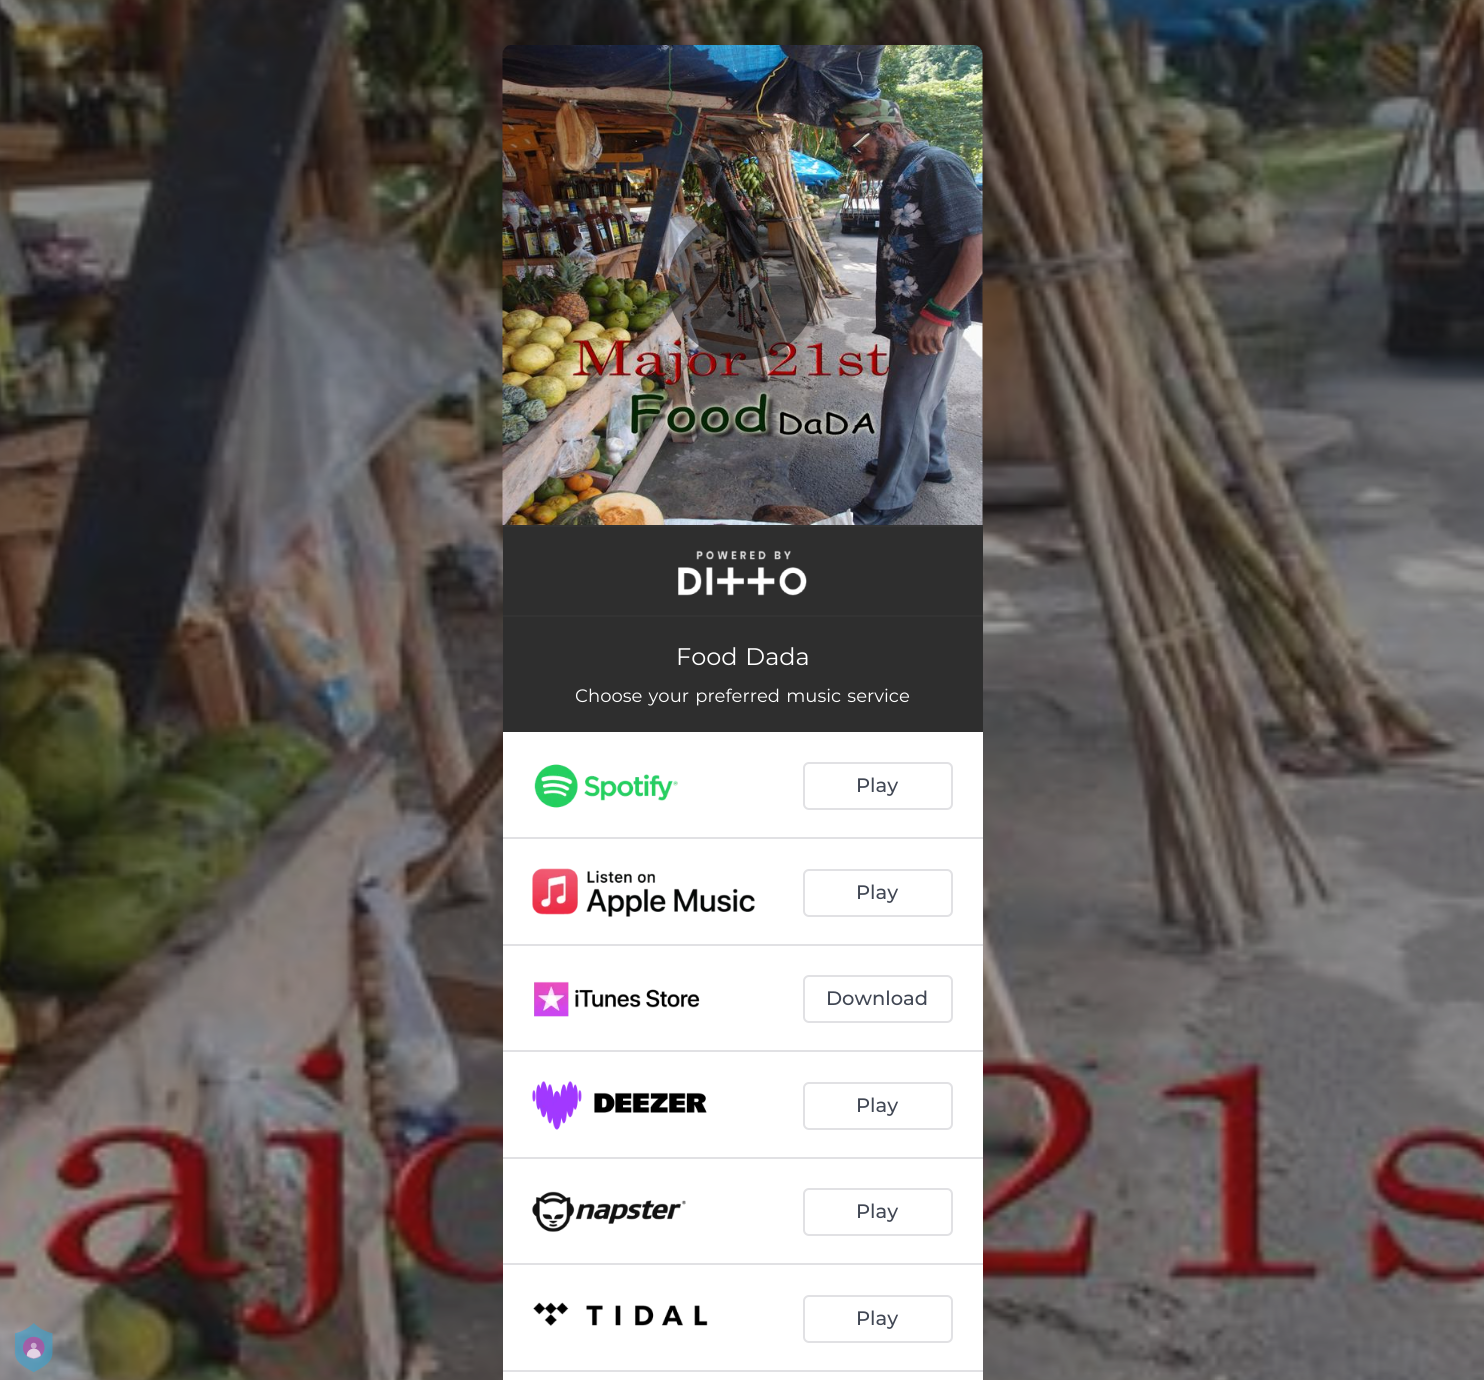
import math
import cairo



def draw_spaced(context, x, y, s, letter, word):
    context.move_to(x, y)
    for ch in s:
        context.show_text(ch)
        context.rel_move_to(letter + word * (ch == ' '), 0)


def rounded_rect(context, x, y, w, h, r):
    context.new_sub_path()
    for i, (u, v) in enumerate([(x + w - r, y + h - r), (x + r, y + h - r), (x + r, y + r), (x + w - r, y + r)]):
        context.arc(u, v, r, i * math.pi / 2, (i + 1) * math.pi / 2)
    context.close_path()


def draw_image(context, path, x, y, w, h):
    context.save()
    context.set_source_surface(cairo.ImageSurface.create_from_png(path), x, y)
    context.rectangle(x, y, w, h)
    context.fill()
    context.restore()


def draw(context):
    context.set_source_rgb(1, 1, 1)
    context.paint()
    draw_image(context, "images/1.png", 0, 0, 1484, 1380)
    draw_image(context, "images/2.png", 502, 45, 481, 480)
    context.set_source_rgba(0, 0, 0, 0.45)
    context.arc(743, 285, 75, 0, 2 * math.pi)
    context.fill()
    context.set_source_rgb(46 / 255, 46 / 255, 46 / 255)
    context.rectangle(503, 527, 480, 88)
    context.fill()
    context.set_source_rgb(51 / 255, 51 / 255, 51 / 255)
    context.rectangle(503, 525, 480, 2)
    context.fill()
    context.rectangle(503, 615, 480, 2)
    context.fill()
    draw_image(context, "images/3.png", 678, 550, 129, 46)
    context.set_source_rgb(46 / 255, 46 / 255, 46 / 255)
    context.rectangle(503, 617, 480, 115)
    context.fill()
    context.set_source_rgb(1, 1, 1)
    context.rectangle(503, 732, 480, 648)
    context.fill()
    context.set_source_rgb(225 / 255, 225 / 255, 228 / 255)
    context.rectangle(503, 837, 480, 2)
    context.fill()
    draw_image(context, "images/4.png", 534, 764, 144, 44)
    rounded_rect(context, 804, 763, 148, 46, 5)
    context.stroke()
    context.rectangle(503, 944, 480, 2)
    context.fill()
    draw_image(context, "images/5.png", 532, 868, 223, 49)
    rounded_rect(context, 804, 870, 148, 46, 5)
    context.stroke()
    context.rectangle(503, 1050, 480, 2)
    context.fill()
    draw_image(context, "images/6.png", 534, 981, 166, 36)
    rounded_rect(context, 804, 976, 148, 46, 5)
    context.stroke()
    context.rectangle(503, 1157, 480, 2)
    context.fill()
    draw_image(context, "images/7.png", 532, 1081, 175, 49)
    rounded_rect(context, 804, 1083, 148, 46, 5)
    context.stroke()
    context.rectangle(503, 1263, 480, 2)
    context.fill()
    draw_image(context, "images/8.png", 532, 1191, 154, 41)
    rounded_rect(context, 804, 1189, 148, 46, 5)
    context.stroke()
    context.rectangle(503, 1370, 480, 2)
    context.fill()
    draw_image(context, "images/9.png", 533, 1302, 175, 24)
    rounded_rect(context, 804, 1296, 148, 46, 5)
    context.stroke()
    draw_image(context, "images/10.png", 15, 1323, 38, 50)
    context.select_font_face("Montserrat")
    context.set_font_size(24)
    context.set_source_rgb(1, 1, 1)
    draw_spaced(context, 676, 665, "Food Dada", 0, 1.5)
    context.set_font_size(18)
    draw_spaced(context, 575, 702, "Choose your preferred music service", 0, 1.5)
    context.select_font_face("Montserrat Medium")
    context.set_font_size(19.5)
    context.set_source_rgb(65 / 255, 71 / 255, 84 / 255)
    context.move_to(856, 792)
    context.show_text("Play")
    context.move_to(856, 899)
    context.show_text("Play")
    context.move_to(826, 1005)
    context.show_text("Download")
    context.move_to(856, 1112)
    context.show_text("Play")
    context.move_to(856, 1218)
    context.show_text("Play")
    context.move_to(856, 1325)
    context.show_text("Play")


surface = cairo.ImageSurface(cairo.Format.RGB24, 1484, 1380)
context = cairo.Context(surface)
options = cairo.FontOptions()
options.set_hint_metrics(cairo.HintMetrics.OFF)
options.set_hint_style(cairo.HintStyle.NONE)
context.set_font_options(options)
context.set_miter_limit(4)
draw(context)
surface.write_to_png("out.png")
